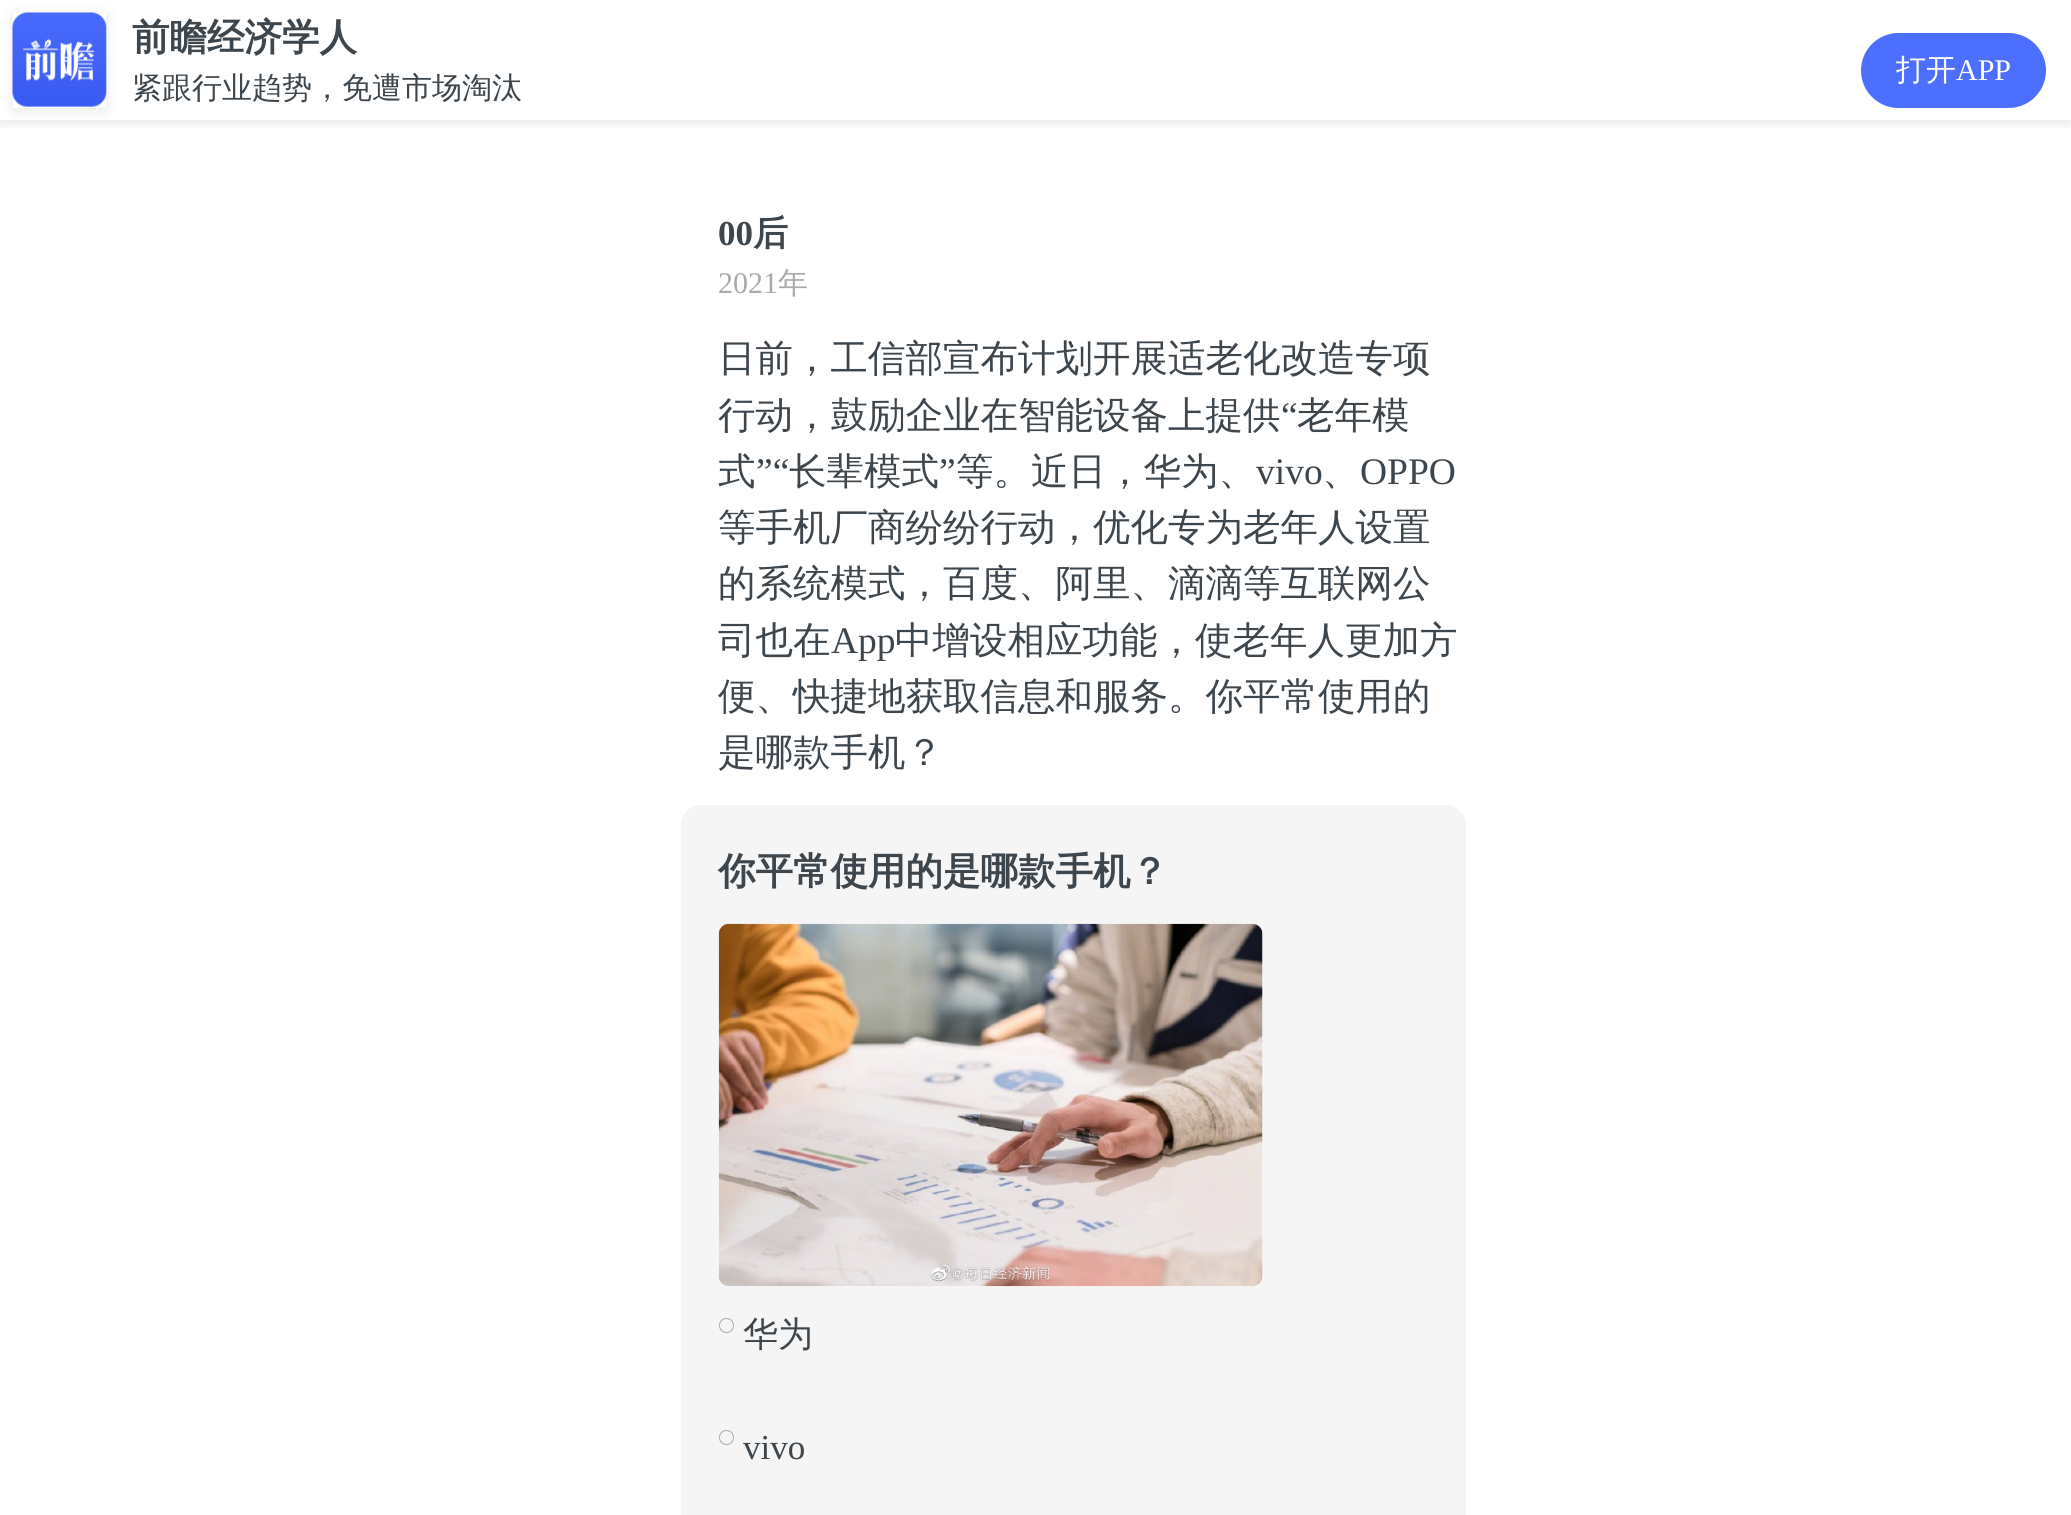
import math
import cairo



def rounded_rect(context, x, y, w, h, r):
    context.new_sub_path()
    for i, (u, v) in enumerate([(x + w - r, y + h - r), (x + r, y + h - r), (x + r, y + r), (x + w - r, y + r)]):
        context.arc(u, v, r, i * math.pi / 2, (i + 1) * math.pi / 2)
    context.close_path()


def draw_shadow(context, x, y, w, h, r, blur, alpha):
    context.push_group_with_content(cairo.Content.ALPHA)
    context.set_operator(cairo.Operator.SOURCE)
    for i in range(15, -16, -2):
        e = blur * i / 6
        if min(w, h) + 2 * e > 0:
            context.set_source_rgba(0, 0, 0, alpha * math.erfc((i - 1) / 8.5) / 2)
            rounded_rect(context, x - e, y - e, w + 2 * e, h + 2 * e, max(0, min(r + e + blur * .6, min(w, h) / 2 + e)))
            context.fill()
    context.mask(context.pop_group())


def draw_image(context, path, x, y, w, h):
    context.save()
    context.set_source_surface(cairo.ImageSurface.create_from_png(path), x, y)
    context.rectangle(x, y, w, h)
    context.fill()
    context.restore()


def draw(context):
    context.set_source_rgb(1, 1, 1)
    context.paint()
    context.save()
    context.rectangle(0, 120, 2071, 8)
    context.clip()
    context.set_source_rgb(0, 0, 0)
    draw_shadow(context, 0, 3, 2071, 120, 0, 6, 0.1)
    context.restore()
    context.save()
    context.set_fill_rule(cairo.FillRule.EVEN_ODD)
    context.new_path()
    context.move_to(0, 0)
    context.line_to(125, 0)
    context.line_to(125, 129)
    context.line_to(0, 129)
    context.close_path()
    context.move_to(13, 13)
    context.line_to(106, 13)
    context.line_to(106, 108)
    context.line_to(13, 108)
    context.close_path()
    context.clip()
    context.set_source_rgb(0, 0, 0)
    draw_shadow(context, 13, 15, 93, 95, 0, 6, 0.1)
    context.restore()
    draw_image(context, "images/1.png", 12, 12, 95, 96)
    context.set_source_rgb(77 / 255, 111 / 255, 1)
    rounded_rect(context, 1861, 33, 185, 75, 37.5)
    context.fill()
    context.set_source_rgb(245 / 255, 245 / 255, 245 / 255)
    rounded_rect(context, 681, 805, 785, 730, 20)
    context.fill()
    draw_image(context, "images/2.png", 718, 923, 545, 364)
    context.arc(726.5, 1325.5, 7, 0, 2 * math.pi)
    context.set_source_rgb(170 / 255, 170 / 255, 170 / 255)
    context.set_line_width(1)
    context.stroke()
    context.arc(726.5, 1437.5, 7, 0, 2 * math.pi)
    context.stroke()
    context.select_font_face("WenQuanYi Zen Hei", cairo.FontSlant.NORMAL, cairo.FontWeight.BOLD)
    context.set_font_size(37.5)
    context.set_source_rgb(62 / 255, 70 / 255, 77 / 255)
    context.move_to(132, 50)
    context.show_text("前瞻经济学人")
    context.select_font_face("WenQuanYi Zen Hei Medium")
    context.set_font_size(30)
    context.move_to(132, 98)
    context.show_text("紧跟行业趋势，免遭市场淘汰")
    context.set_source_rgb(1, 1, 1)
    context.move_to(1896, 80)
    context.show_text("打开")
    context.select_font_face("Liberation Serif")
    context.move_to(1956, 80)
    context.show_text("APP")
    context.select_font_face("Liberation Serif", cairo.FontSlant.NORMAL, cairo.FontWeight.BOLD)
    context.set_font_size(35)
    context.set_source_rgb(62 / 255, 70 / 255, 77 / 255)
    context.move_to(718, 245)
    context.show_text("00")
    context.select_font_face("WenQuanYi Zen Hei", cairo.FontSlant.NORMAL, cairo.FontWeight.BOLD)
    context.move_to(753, 245)
    context.show_text("后")
    context.select_font_face("Liberation Serif")
    context.set_font_size(30)
    context.set_source_rgb(170 / 255, 170 / 255, 170 / 255)
    context.move_to(718, 293)
    context.show_text("2021")
    context.select_font_face("WenQuanYi Zen Hei Medium")
    context.move_to(778, 293)
    context.show_text("年")
    context.set_font_size(37.5)
    context.set_source_rgb(62 / 255, 70 / 255, 77 / 255)
    context.move_to(718, 371)
    context.show_text("日前，工信部宣布计划开展适老化改造专项")
    context.move_to(718, 428)
    context.show_text("行动，鼓励企业在智能设备上提供")
    context.select_font_face("Liberation Serif")
    context.move_to(1281, 428)
    context.show_text("“")
    context.select_font_face("WenQuanYi Zen Hei Medium")
    context.move_to(1297, 428)
    context.show_text("老年模")
    context.move_to(718, 484)
    context.show_text("式")
    context.select_font_face("Liberation Serif")
    context.move_to(756, 484)
    context.show_text("”“")
    context.select_font_face("WenQuanYi Zen Hei Medium")
    context.move_to(789, 484)
    context.show_text("长辈模式")
    context.select_font_face("Liberation Serif")
    context.move_to(939, 484)
    context.show_text("”")
    context.select_font_face("WenQuanYi Zen Hei Medium")
    context.move_to(956, 484)
    context.show_text("等。近日，华为、")
    context.select_font_face("Liberation Serif")
    context.move_to(1256, 484)
    context.show_text("vivo")
    context.select_font_face("WenQuanYi Zen Hei Medium")
    context.move_to(1322, 484)
    context.show_text("、")
    context.select_font_face("Liberation Serif")
    context.move_to(1360, 484)
    context.show_text("OPPO")
    context.select_font_face("WenQuanYi Zen Hei Medium")
    context.move_to(718, 540)
    context.show_text("等手机厂商纷纷行动，优化专为老年人设置")
    context.move_to(718, 596)
    context.show_text("的系统模式，百度、阿里、滴滴等互联网公")
    context.move_to(718, 653)
    context.show_text("司也在")
    context.select_font_face("Liberation Serif")
    context.move_to(831, 653)
    context.show_text("App")
    context.select_font_face("WenQuanYi Zen Hei Medium")
    context.move_to(895, 653)
    context.show_text("中增设相应功能，使老年人更加方")
    context.move_to(718, 709)
    context.show_text("便、快捷地获取信息和服务。你平常使用的")
    context.move_to(718, 765)
    context.show_text("是哪款手机？")
    context.select_font_face("WenQuanYi Zen Hei", cairo.FontSlant.NORMAL, cairo.FontWeight.BOLD)
    context.move_to(718, 884)
    context.show_text("你平常使用的是哪款手机？")
    context.select_font_face("WenQuanYi Zen Hei Medium")
    context.set_font_size(35)
    context.move_to(743, 1346)
    context.show_text("华为")
    context.select_font_face("Liberation Serif")
    context.move_to(743, 1459)
    context.show_text("vivo")


surface = cairo.ImageSurface(cairo.Format.RGB24, 2071, 1515)
context = cairo.Context(surface)
options = cairo.FontOptions()
options.set_hint_metrics(cairo.HintMetrics.OFF)
options.set_hint_style(cairo.HintStyle.NONE)
context.set_font_options(options)
context.set_miter_limit(4)
draw(context)
surface.write_to_png("out.png")
